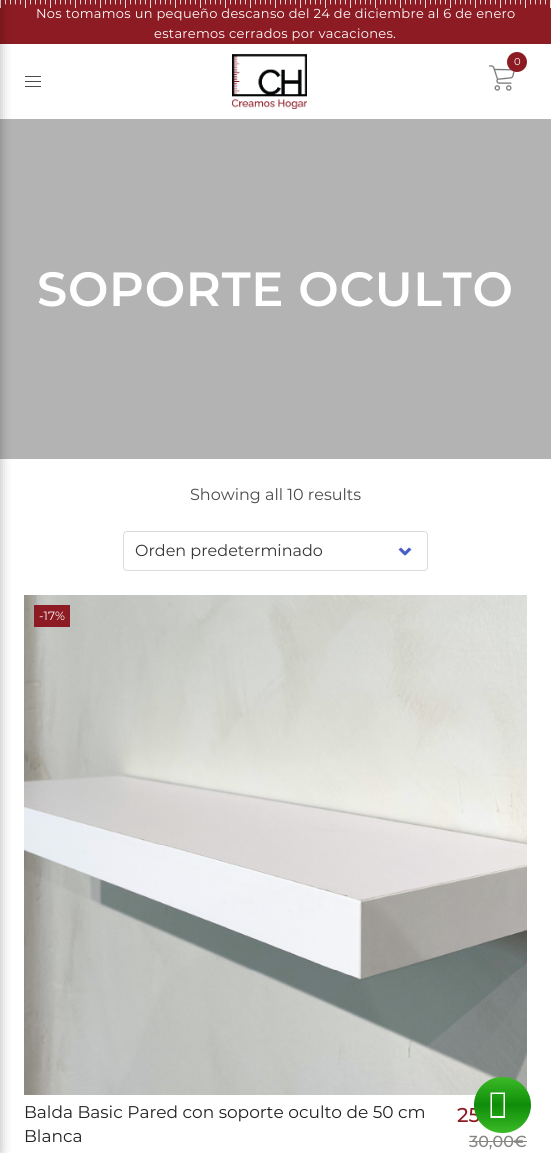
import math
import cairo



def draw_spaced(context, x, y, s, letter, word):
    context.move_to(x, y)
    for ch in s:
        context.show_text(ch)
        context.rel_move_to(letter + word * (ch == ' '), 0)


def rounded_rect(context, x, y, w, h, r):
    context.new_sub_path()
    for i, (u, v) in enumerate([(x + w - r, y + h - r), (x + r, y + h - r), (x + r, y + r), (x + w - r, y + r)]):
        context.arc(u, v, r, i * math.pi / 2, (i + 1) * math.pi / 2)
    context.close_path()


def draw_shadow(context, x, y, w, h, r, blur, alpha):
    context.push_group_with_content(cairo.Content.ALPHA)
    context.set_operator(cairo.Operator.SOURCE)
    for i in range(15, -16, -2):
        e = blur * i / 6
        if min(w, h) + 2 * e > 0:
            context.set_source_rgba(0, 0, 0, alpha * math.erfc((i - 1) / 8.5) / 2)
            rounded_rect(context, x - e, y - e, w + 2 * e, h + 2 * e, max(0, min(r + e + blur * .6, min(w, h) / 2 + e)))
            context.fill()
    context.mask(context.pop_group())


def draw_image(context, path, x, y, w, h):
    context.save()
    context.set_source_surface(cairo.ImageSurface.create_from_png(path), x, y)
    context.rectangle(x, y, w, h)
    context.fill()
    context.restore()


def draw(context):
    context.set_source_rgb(1, 1, 1)
    context.paint()
    context.set_source_rgb(140 / 255, 27 / 255, 35 / 255)
    context.rectangle(0, 0, 551, 44)
    context.fill()
    draw_image(context, "images/1.png", 0, 0, 551, 8)
    context.set_source_rgb(179 / 255, 179 / 255, 179 / 255)
    context.rectangle(0, 119, 551, 340)
    context.fill()
    context.set_source_rgb(0, 0, 0)
    draw_shadow(context, -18, 0, 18, 1153, 0, 6, 0.3)
    draw_image(context, "images/2.png", 232, 54, 75, 55)
    draw_image(context, "images/3.png", 489, 65, 26, 26)
    context.set_source_rgb(140 / 255, 27 / 255, 35 / 255)
    context.arc(517, 62, 10, 0, 2 * math.pi)
    context.fill()
    context.set_source_rgb(74 / 255, 74 / 255, 74 / 255)
    context.rectangle(25, 76, 16, 1)
    context.fill()
    context.rectangle(25, 81, 16, 1)
    context.fill()
    context.rectangle(25, 86, 16, 1)
    context.fill()
    rounded_rect(context, 123.5, 531.5, 304, 39, 3.5)
    context.set_source_rgb(219 / 255, 219 / 255, 219 / 255)
    context.set_line_width(1)
    context.stroke()
    context.set_source_rgb(72 / 255, 95 / 255, 199 / 255)
    context.new_path()
    context.move_to(403.5, 553)
    context.line_to(409, 547.5)
    context.line_to(411.5, 549.5)
    context.line_to(405.5, 555.5)
    context.close_path()
    context.fill()
    context.new_path()
    context.move_to(398.5, 549.5)
    context.line_to(401, 547.5)
    context.line_to(406.5, 553)
    context.line_to(404.5, 555.5)
    context.close_path()
    context.fill()
    draw_image(context, "images/4.png", 24, 595, 503, 500)
    context.set_source_rgb(140 / 255, 27 / 255, 35 / 255)
    context.rectangle(34, 605, 36, 22)
    context.fill()
    context.set_source_rgb(132 / 255, 134 / 255, 129 / 255)
    context.rectangle(469, 1141, 58, 1)
    context.fill()
    context.select_font_face("Montserrat")
    context.set_font_size(13)
    context.set_source_rgb(1, 1, 1)
    draw_spaced(context, 36, 18, "Nos tomamos un pequeño descanso del 24 de diciembre al 6 de enero", 0.3, 0)
    draw_spaced(context, 154, 38, "estaremos cerrados por vacaciones.", 0.3, 0)
    context.set_font_size(10)
    context.move_to(514, 65)
    context.show_text("0")
    context.select_font_face("Montserrat SemiBold")
    context.set_font_size(48)
    draw_spaced(context, 37, 306, "SOPORTE OCULTO", 0.75, 0)
    context.select_font_face("Montserrat")
    context.set_font_size(16)
    context.set_source_rgb(74 / 255, 74 / 255, 74 / 255)
    context.move_to(190, 500)
    context.show_text("Showing all 10 results")
    context.set_source_rgb(54 / 255, 54 / 255, 54 / 255)
    context.move_to(135, 556)
    context.show_text("Orden predeterminado")
    context.set_font_size(12)
    context.set_source_rgb(1, 1, 1)
    context.move_to(39, 620)
    context.show_text("-17%")
    context.set_font_size(17)
    context.set_source_rgb(34 / 255, 34 / 255, 34 / 255)
    context.move_to(24, 1118)
    context.show_text("Balda Basic Pared con soporte oculto de 50 cm")
    context.move_to(24, 1142)
    context.show_text("Blanca")
    context.select_font_face("Montserrat Medium")
    context.set_font_size(20)
    context.set_source_rgb(140 / 255, 27 / 255, 35 / 255)
    context.move_to(457, 1122)
    context.show_text("25")
    context.set_font_size(16)
    context.set_source_rgb(132 / 255, 134 / 255, 129 / 255)
    context.move_to(469, 1147)
    context.show_text("30,00€")
    gradient = cairo.LinearGradient(503, 1077, 503, 1133)
    gradient.add_color_stop_rgba(0, 60 / 255, 186 / 255, 40 / 255, 1)
    gradient.add_color_stop_rgba(0.5, 15 / 255, 141 / 255, 8 / 255, 1)
    gradient.add_color_stop_rgba(1, 60 / 255, 186 / 255, 40 / 255, 1)
    context.set_source(gradient)
    rounded_rect(context, 474, 1077, 57, 56, 28)
    context.fill()
    context.set_source_rgb(1, 1, 1)
    context.new_path()
    context.move_to(490.5, 1118)
    context.line_to(490.5, 1092.5)
    context.line_to(505, 1092.5)
    context.line_to(505, 1118)
    context.close_path()
    context.move_to(492, 1116)
    context.line_to(503.5, 1116)
    context.line_to(503.5, 1094)
    context.line_to(492, 1094)
    context.close_path()
    context.fill()


surface = cairo.ImageSurface(cairo.Format.RGB24, 551, 1153)
context = cairo.Context(surface)
options = cairo.FontOptions()
options.set_hint_metrics(cairo.HintMetrics.OFF)
options.set_hint_style(cairo.HintStyle.NONE)
context.set_font_options(options)
context.set_miter_limit(4)
draw(context)
surface.write_to_png("out.png")
